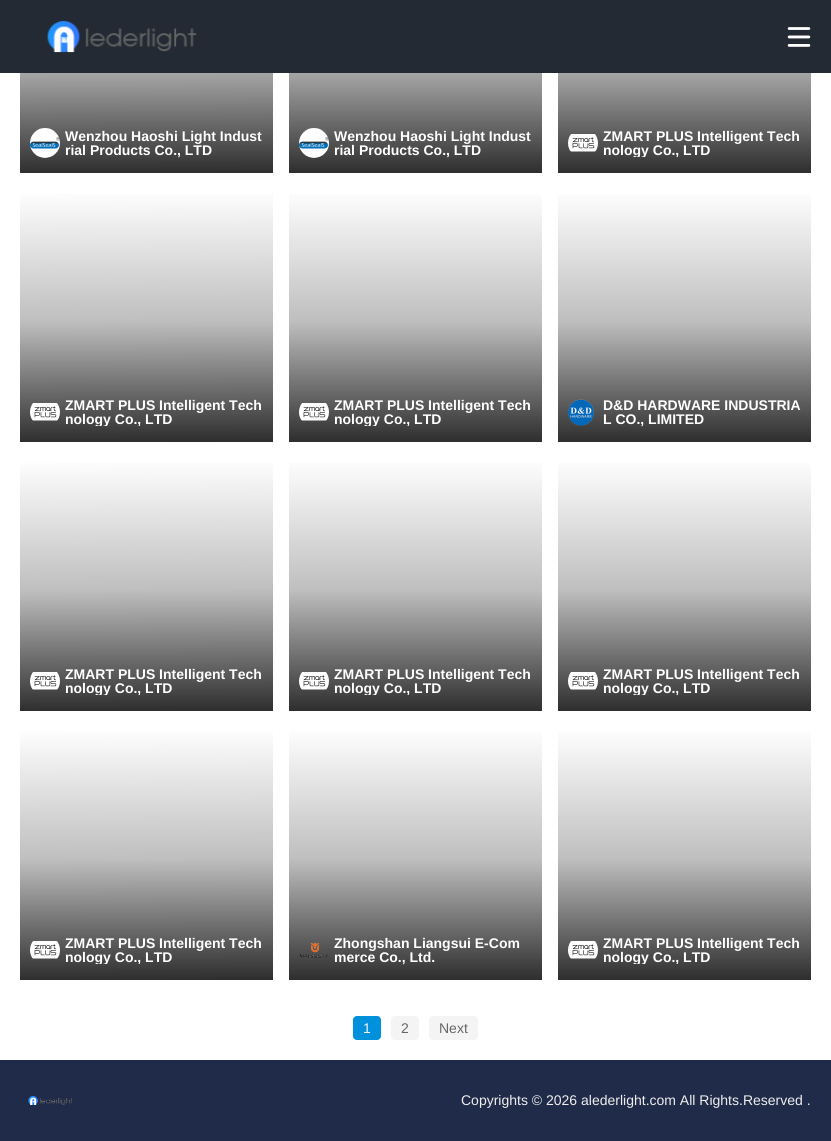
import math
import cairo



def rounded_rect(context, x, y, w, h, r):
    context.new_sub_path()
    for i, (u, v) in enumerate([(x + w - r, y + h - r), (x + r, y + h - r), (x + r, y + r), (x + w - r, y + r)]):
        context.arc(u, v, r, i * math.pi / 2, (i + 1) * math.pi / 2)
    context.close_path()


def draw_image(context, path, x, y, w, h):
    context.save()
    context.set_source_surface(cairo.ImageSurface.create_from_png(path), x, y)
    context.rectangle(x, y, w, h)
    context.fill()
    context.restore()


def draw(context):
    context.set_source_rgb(1, 1, 1)
    context.paint()
    context.set_source_rgb(35 / 255, 42 / 255, 52 / 255)
    context.rectangle(0, 0, 831, 73)
    context.fill()
    draw_image(context, "images/1.png", 47, 21, 150, 32)
    draw_image(context, "images/2.png", 787, 27, 24, 20)
    gradient = cairo.LinearGradient(146, -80, 147, 173)
    gradient.add_color_stop_rgba(0, 1, 1, 1, 1)
    gradient.add_color_stop_rgba(0.52, 191 / 255, 191 / 255, 191 / 255, 1)
    gradient.add_color_stop_rgba(1, 46 / 255, 46 / 255, 46 / 255, 1)
    context.set_source(gradient)
    context.rectangle(20, 73, 253, 100)
    context.fill()
    draw_image(context, "images/3.png", 30, 128, 30, 30)
    gradient = cairo.LinearGradient(416, -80, 416, 173)
    gradient.add_color_stop_rgba(0, 1, 1, 1, 1)
    gradient.add_color_stop_rgba(0.52, 191 / 255, 191 / 255, 191 / 255, 1)
    gradient.add_color_stop_rgba(1, 46 / 255, 46 / 255, 46 / 255, 1)
    context.set_source(gradient)
    context.rectangle(289, 73, 253, 100)
    context.fill()
    draw_image(context, "images/4.png", 299, 128, 30, 30)
    gradient = cairo.LinearGradient(685, -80, 685, 173)
    gradient.add_color_stop_rgba(0, 1, 1, 1, 1)
    gradient.add_color_stop_rgba(0.52, 191 / 255, 191 / 255, 191 / 255, 1)
    gradient.add_color_stop_rgba(1, 46 / 255, 46 / 255, 46 / 255, 1)
    context.set_source(gradient)
    context.rectangle(558, 73, 253, 100)
    context.fill()
    draw_image(context, "images/5.png", 568, 134, 30, 18)
    gradient = cairo.LinearGradient(146, 189, 147, 442)
    gradient.add_color_stop_rgba(0, 1, 1, 1, 1)
    gradient.add_color_stop_rgba(0.52, 191 / 255, 191 / 255, 191 / 255, 1)
    gradient.add_color_stop_rgba(1, 46 / 255, 46 / 255, 46 / 255, 1)
    context.set_source(gradient)
    context.rectangle(20, 194, 253, 248)
    context.fill()
    draw_image(context, "images/6.png", 30, 403, 30, 18)
    gradient = cairo.LinearGradient(416, 189, 416, 442)
    gradient.add_color_stop_rgba(0, 1, 1, 1, 1)
    gradient.add_color_stop_rgba(0.52, 191 / 255, 191 / 255, 191 / 255, 1)
    gradient.add_color_stop_rgba(1, 46 / 255, 46 / 255, 46 / 255, 1)
    context.set_source(gradient)
    context.rectangle(289, 194, 253, 248)
    context.fill()
    draw_image(context, "images/5.png", 299, 403, 30, 18)
    gradient = cairo.LinearGradient(685, 189, 685, 442)
    gradient.add_color_stop_rgba(0, 1, 1, 1, 1)
    gradient.add_color_stop_rgba(0.52, 191 / 255, 191 / 255, 191 / 255, 1)
    gradient.add_color_stop_rgba(1, 46 / 255, 46 / 255, 46 / 255, 1)
    context.set_source(gradient)
    context.rectangle(558, 194, 253, 248)
    context.fill()
    draw_image(context, "images/7.png", 568, 399, 27, 27)
    gradient = cairo.LinearGradient(146, 458, 147, 711)
    gradient.add_color_stop_rgba(0, 1, 1, 1, 1)
    gradient.add_color_stop_rgba(0.52, 191 / 255, 191 / 255, 191 / 255, 1)
    gradient.add_color_stop_rgba(1, 46 / 255, 46 / 255, 46 / 255, 1)
    context.set_source(gradient)
    context.rectangle(20, 463, 253, 248)
    context.fill()
    draw_image(context, "images/6.png", 30, 672, 30, 18)
    gradient = cairo.LinearGradient(416, 458, 416, 711)
    gradient.add_color_stop_rgba(0, 1, 1, 1, 1)
    gradient.add_color_stop_rgba(0.52, 191 / 255, 191 / 255, 191 / 255, 1)
    gradient.add_color_stop_rgba(1, 46 / 255, 46 / 255, 46 / 255, 1)
    context.set_source(gradient)
    context.rectangle(289, 463, 253, 248)
    context.fill()
    draw_image(context, "images/5.png", 299, 672, 30, 18)
    gradient = cairo.LinearGradient(685, 458, 685, 711)
    gradient.add_color_stop_rgba(0, 1, 1, 1, 1)
    gradient.add_color_stop_rgba(0.52, 191 / 255, 191 / 255, 191 / 255, 1)
    gradient.add_color_stop_rgba(1, 46 / 255, 46 / 255, 46 / 255, 1)
    context.set_source(gradient)
    context.rectangle(558, 463, 253, 248)
    context.fill()
    draw_image(context, "images/5.png", 568, 672, 30, 18)
    gradient = cairo.LinearGradient(146, 727, 147, 980)
    gradient.add_color_stop_rgba(0, 1, 1, 1, 1)
    gradient.add_color_stop_rgba(0.52, 191 / 255, 191 / 255, 191 / 255, 1)
    gradient.add_color_stop_rgba(1, 46 / 255, 46 / 255, 46 / 255, 1)
    context.set_source(gradient)
    context.rectangle(20, 732, 253, 248)
    context.fill()
    draw_image(context, "images/6.png", 30, 941, 30, 18)
    gradient = cairo.LinearGradient(416, 727, 416, 980)
    gradient.add_color_stop_rgba(0, 1, 1, 1, 1)
    gradient.add_color_stop_rgba(0.52, 191 / 255, 191 / 255, 191 / 255, 1)
    gradient.add_color_stop_rgba(1, 46 / 255, 46 / 255, 46 / 255, 1)
    context.set_source(gradient)
    context.rectangle(289, 732, 253, 248)
    context.fill()
    draw_image(context, "images/8.png", 300, 942, 28, 17)
    gradient = cairo.LinearGradient(685, 727, 685, 980)
    gradient.add_color_stop_rgba(0, 1, 1, 1, 1)
    gradient.add_color_stop_rgba(0.52, 191 / 255, 191 / 255, 191 / 255, 1)
    gradient.add_color_stop_rgba(1, 46 / 255, 46 / 255, 46 / 255, 1)
    context.set_source(gradient)
    context.rectangle(558, 732, 253, 248)
    context.fill()
    draw_image(context, "images/5.png", 568, 941, 30, 18)
    context.set_source_rgb(0, 145 / 255, 220 / 255)
    rounded_rect(context, 353, 1016, 28, 24, 4)
    context.fill()
    context.set_source_rgb(244 / 255, 244 / 255, 244 / 255)
    rounded_rect(context, 391, 1016, 28, 24, 4)
    context.fill()
    rounded_rect(context, 429, 1016, 49, 24, 4)
    context.fill()
    context.set_source_rgb(31 / 255, 43 / 255, 72 / 255)
    context.rectangle(0, 1060, 831, 81)
    context.fill()
    draw_image(context, "images/9.png", 28, 1096, 45, 9)
    context.select_font_face("Liberation Sans", cairo.FontSlant.NORMAL, cairo.FontWeight.BOLD)
    context.set_font_size(14)
    context.set_source_rgb(1, 1, 1)
    context.move_to(65, 141)
    context.show_text("Wenzhou Haoshi Light Indust")
    context.move_to(65, 155)
    context.show_text("rial Products Co., LTD")
    context.move_to(334, 141)
    context.show_text("Wenzhou Haoshi Light Indust")
    context.move_to(334, 155)
    context.show_text("rial Products Co., LTD")
    context.move_to(603, 141)
    context.show_text("ZMART PLUS Intelligent Tech")
    context.save()
    context.rectangle(603, 129, 198, 28)
    context.clip()
    context.move_to(603, 155)
    context.show_text("nology Co., LTD")
    context.restore()
    context.move_to(65, 410)
    context.show_text("ZMART PLUS Intelligent Tech")
    context.save()
    context.rectangle(65, 398, 198, 28)
    context.clip()
    context.move_to(65, 424)
    context.show_text("nology Co., LTD")
    context.restore()
    context.move_to(334, 410)
    context.show_text("ZMART PLUS Intelligent Tech")
    context.save()
    context.rectangle(334, 398, 198, 28)
    context.clip()
    context.move_to(334, 424)
    context.show_text("nology Co., LTD")
    context.restore()
    context.move_to(603, 410)
    context.show_text("D&D HARDWARE INDUSTRIA")
    context.move_to(603, 424)
    context.show_text("L CO., LIMITED")
    context.move_to(65, 679)
    context.show_text("ZMART PLUS Intelligent Tech")
    context.save()
    context.rectangle(65, 667, 198, 28)
    context.clip()
    context.move_to(65, 693)
    context.show_text("nology Co., LTD")
    context.restore()
    context.move_to(334, 679)
    context.show_text("ZMART PLUS Intelligent Tech")
    context.save()
    context.rectangle(334, 667, 198, 28)
    context.clip()
    context.move_to(334, 693)
    context.show_text("nology Co., LTD")
    context.restore()
    context.move_to(603, 679)
    context.show_text("ZMART PLUS Intelligent Tech")
    context.save()
    context.rectangle(603, 667, 198, 28)
    context.clip()
    context.move_to(603, 693)
    context.show_text("nology Co., LTD")
    context.restore()
    context.move_to(65, 948)
    context.show_text("ZMART PLUS Intelligent Tech")
    context.save()
    context.rectangle(65, 936, 198, 28)
    context.clip()
    context.move_to(65, 962)
    context.show_text("nology Co., LTD")
    context.restore()
    context.move_to(334, 948)
    context.show_text("Zhongshan Liangsui E-Com")
    context.move_to(334, 962)
    context.show_text("merce Co., Ltd.")
    context.move_to(603, 948)
    context.show_text("ZMART PLUS Intelligent Tech")
    context.save()
    context.rectangle(603, 936, 198, 28)
    context.clip()
    context.move_to(603, 962)
    context.show_text("nology Co., LTD")
    context.restore()
    context.select_font_face("Liberation Sans")
    context.set_source_rgb(244 / 255, 244 / 255, 244 / 255)
    context.move_to(363, 1033)
    context.show_text("1")
    context.set_source_rgb(102 / 255, 102 / 255, 102 / 255)
    context.move_to(401, 1033)
    context.show_text("2")
    context.move_to(439, 1033)
    context.show_text("Next")
    context.set_source_rgb(238 / 255, 238 / 255, 238 / 255)
    context.move_to(461, 1105)
    context.show_text("Copyrights © 2026 alederlight.com All Rights.Reserved .")


surface = cairo.ImageSurface(cairo.Format.RGB24, 831, 1141)
context = cairo.Context(surface)
options = cairo.FontOptions()
options.set_hint_metrics(cairo.HintMetrics.OFF)
options.set_hint_style(cairo.HintStyle.NONE)
context.set_font_options(options)
context.set_miter_limit(4)
draw(context)
surface.write_to_png("out.png")
